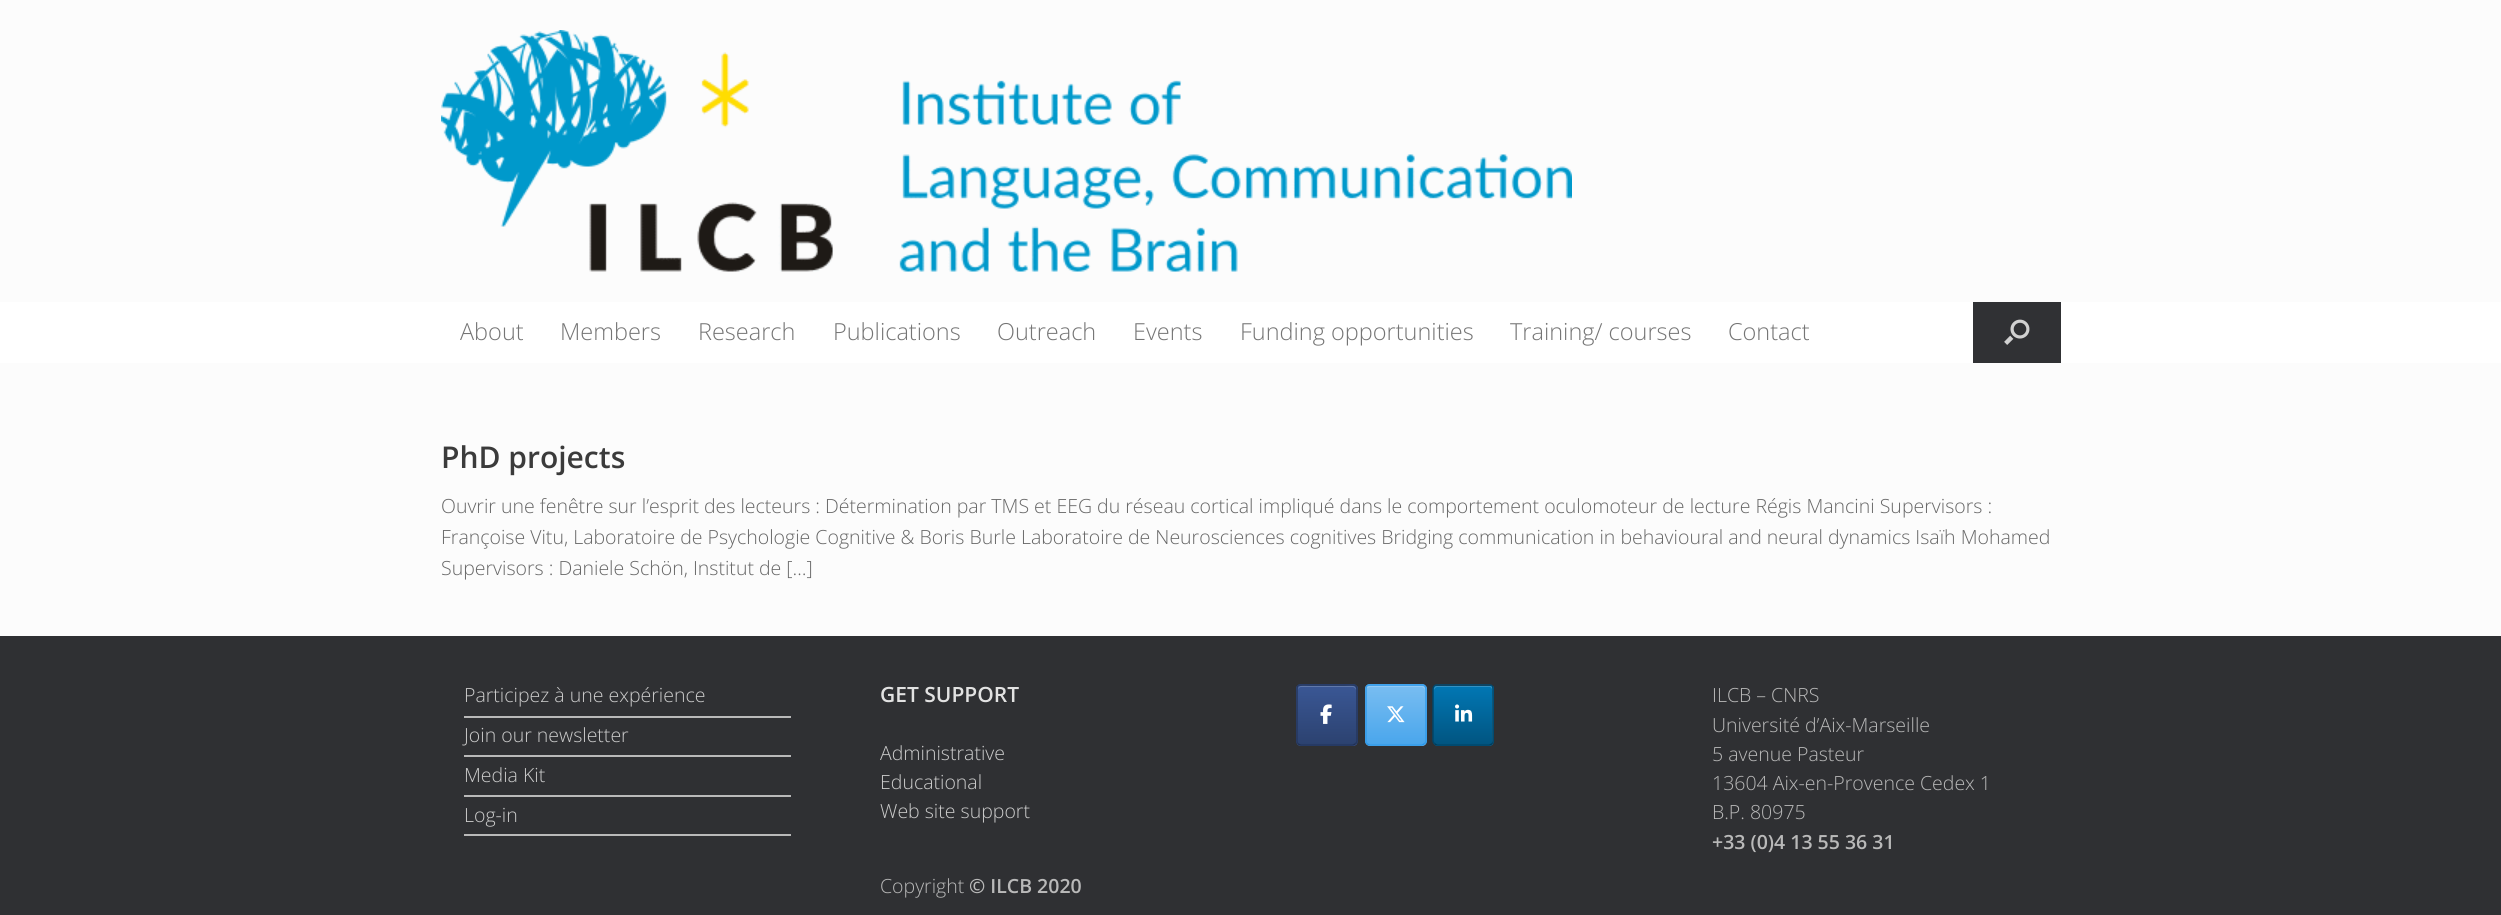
import math
import cairo



def rounded_rect(context, x, y, w, h, r):
    context.new_sub_path()
    for i, (u, v) in enumerate([(x + w - r, y + h - r), (x + r, y + h - r), (x + r, y + r), (x + w - r, y + r)]):
        context.arc(u, v, r, i * math.pi / 2, (i + 1) * math.pi / 2)
    context.close_path()


def draw_image(context, path, x, y, w, h):
    context.save()
    context.set_source_surface(cairo.ImageSurface.create_from_png(path), x, y)
    context.rectangle(x, y, w, h)
    context.fill()
    context.restore()


def draw(context):
    context.set_source_rgb(47 / 255, 48 / 255, 51 / 255)
    context.paint()
    context.set_source_rgb(252 / 255, 252 / 255, 252 / 255)
    context.rectangle(0, 0, 2501, 302)
    context.fill()
    draw_image(context, "images/1.png", 441, 30, 1131, 242)
    context.set_source_rgb(1, 1, 1)
    context.rectangle(0, 302, 2501, 61)
    context.fill()
    context.set_source_rgb(48 / 255, 49 / 255, 52 / 255)
    context.rectangle(1973, 302, 88, 61)
    context.fill()
    draw_image(context, "images/2.png", 2004, 319, 26, 26)
    context.set_source_rgb(252 / 255, 252 / 255, 252 / 255)
    context.rectangle(0, 363, 2501, 273)
    context.fill()
    context.set_source_rgb(185 / 255, 185 / 255, 185 / 255)
    context.rectangle(464, 716, 327, 2)
    context.fill()
    context.rectangle(464, 755, 327, 2)
    context.fill()
    context.rectangle(464, 795, 327, 2)
    context.fill()
    context.rectangle(464, 834, 327, 2)
    context.fill()
    context.save()
    rounded_rect(context, 1296, 684, 62, 62, 5)
    context.clip()
    gradient = cairo.LinearGradient(1298, 686, 1298, 627)
    gradient.add_color_stop_rgba(0, 44 / 255, 66 / 255, 112 / 255, 1)
    gradient.add_color_stop_rgba(1, 58 / 255, 87 / 255, 149 / 255, 1)
    context.set_source(gradient)
    context.rectangle(1296, 684, 62, 2)
    context.fill()
    gradient = cairo.LinearGradient(1298, 744, 1298, 686)
    gradient.add_color_stop_rgba(0, 44 / 255, 66 / 255, 112 / 255, 1)
    gradient.add_color_stop_rgba(1, 58 / 255, 87 / 255, 149 / 255, 1)
    context.set_source(gradient)
    context.rectangle(1296, 686, 62, 58)
    context.fill()
    gradient = cairo.LinearGradient(1298, 803, 1298, 744)
    gradient.add_color_stop_rgba(0, 44 / 255, 66 / 255, 112 / 255, 1)
    gradient.add_color_stop_rgba(1, 58 / 255, 87 / 255, 149 / 255, 1)
    context.set_source(gradient)
    context.rectangle(1296, 744, 62, 2)
    context.fill()
    context.restore()
    context.set_source_rgb(97 / 255, 121 / 255, 170 / 255)
    context.new_path()
    context.move_to(1301, 687)
    context.line_to(1353, 687)
    context.curve_to(1354, 687, 1356, 689, 1356, 690)
    context.curve_to(1356, 684, 1349, 686, 1344, 686)
    context.line_to(1310, 686)
    context.curve_to(1305, 686, 1298, 684, 1298, 690)
    context.curve_to(1298, 689, 1299, 687, 1301, 687)
    context.close_path()
    context.fill()
    context.new_path()
    context.move_to(1298, 686)
    context.curve_to(1298.5, 685, 1300, 685, 1301, 685)
    context.line_to(1352.5, 685)
    context.curve_to(1353.5, 685, 1355, 685, 1355.5, 686)
    context.set_source_rgb(39 / 255, 59 / 255, 101 / 255)
    context.set_line_width(1.5)
    context.stroke()
    context.new_path()
    context.move_to(1355.5, 686)
    context.curve_to(1356.5, 686.5, 1357, 688, 1357, 689)
    context.line_to(1357, 740.5)
    context.curve_to(1357, 741.5, 1356.5, 743, 1355.5, 743.5)
    context.set_source_rgb(37 / 255, 55 / 255, 94 / 255)
    context.stroke()
    context.new_path()
    context.move_to(1355.5, 743.5)
    context.curve_to(1355, 744.5, 1353.5, 745, 1352.5, 745)
    context.line_to(1301, 745)
    context.curve_to(1300, 745, 1298.5, 744.5, 1298, 743.5)
    context.set_source_rgb(32 / 255, 48 / 255, 83 / 255)
    context.stroke()
    context.new_path()
    context.move_to(1298, 743.5)
    context.curve_to(1297, 743, 1297, 741.5, 1297, 740.5)
    context.line_to(1297, 689)
    context.curve_to(1297, 688, 1297, 686.5, 1298, 686)
    context.set_source_rgb(37 / 255, 55 / 255, 94 / 255)
    context.stroke()
    draw_image(context, "images/3.png", 1320, 704, 12, 20)
    context.save()
    rounded_rect(context, 1365, 684, 62, 62, 5)
    context.clip()
    gradient = cairo.LinearGradient(1367, 686, 1367, 627)
    gradient.add_color_stop_rgba(0, 74 / 255, 166 / 255, 236 / 255, 1)
    gradient.add_color_stop_rgba(1, 120 / 255, 189 / 255, 241 / 255, 1)
    context.set_source(gradient)
    context.rectangle(1365, 684, 62, 2)
    context.fill()
    gradient = cairo.LinearGradient(1367, 744, 1367, 686)
    gradient.add_color_stop_rgba(0, 74 / 255, 166 / 255, 236 / 255, 1)
    gradient.add_color_stop_rgba(1, 120 / 255, 189 / 255, 241 / 255, 1)
    context.set_source(gradient)
    context.rectangle(1365, 686, 62, 58)
    context.fill()
    gradient = cairo.LinearGradient(1367, 803, 1367, 744)
    gradient.add_color_stop_rgba(0, 74 / 255, 166 / 255, 236 / 255, 1)
    gradient.add_color_stop_rgba(1, 120 / 255, 189 / 255, 241 / 255, 1)
    context.set_source(gradient)
    context.rectangle(1365, 744, 62, 2)
    context.fill()
    context.restore()
    context.set_source_rgb(147 / 255, 202 / 255, 244 / 255)
    context.new_path()
    context.move_to(1370, 687)
    context.line_to(1422, 687)
    context.curve_to(1423, 687, 1425, 689, 1425, 690)
    context.line_to(1425, 689)
    context.curve_to(1425, 687, 1424, 686, 1422, 686)
    context.line_to(1370, 686)
    context.curve_to(1369, 686, 1367, 687, 1367, 688)
    context.close_path()
    context.fill()
    context.new_path()
    context.move_to(1367, 686)
    context.curve_to(1367.5, 685, 1369, 685, 1370, 685)
    context.line_to(1421.5, 685)
    context.curve_to(1422.5, 685, 1424, 685, 1424.5, 686)
    context.set_source_rgb(60 / 255, 160 / 255, 235 / 255)
    context.stroke()
    context.new_path()
    context.move_to(1424.5, 686)
    context.curve_to(1425.5, 686.5, 1426, 688, 1426, 689)
    context.line_to(1426, 740.5)
    context.curve_to(1426, 741.5, 1425.5, 743, 1424.5, 743.5)
    context.set_source_rgb(51 / 255, 155 / 255, 234 / 255)
    context.stroke()
    context.new_path()
    context.move_to(1424.5, 743.5)
    context.curve_to(1424, 744.5, 1422.5, 745, 1421.5, 745)
    context.line_to(1370, 745)
    context.curve_to(1369, 745, 1367.5, 744.5, 1367, 743.5)
    context.set_source_rgb(37 / 255, 148 / 255, 232 / 255)
    context.stroke()
    context.new_path()
    context.move_to(1367, 743.5)
    context.curve_to(1366, 743, 1366, 741.5, 1366, 740.5)
    context.line_to(1366, 689)
    context.curve_to(1366, 688, 1366, 686.5, 1367, 686)
    context.set_source_rgb(51 / 255, 155 / 255, 234 / 255)
    context.stroke()
    draw_image(context, "images/4.png", 1387, 706, 18, 17)
    context.save()
    rounded_rect(context, 1433, 684, 61, 62, 5)
    context.clip()
    gradient = cairo.LinearGradient(1434, 744, 1434, 686)
    gradient.add_color_stop_rgba(0, 1 / 255, 85 / 255, 129 / 255, 1)
    gradient.add_color_stop_rgba(1, 1 / 255, 119 / 255, 180 / 255, 1)
    context.set_source(gradient)
    context.rectangle(1433, 686, 61, 58)
    context.fill()
    gradient = cairo.LinearGradient(1434, 803, 1434, 744)
    gradient.add_color_stop_rgba(0, 1 / 255, 85 / 255, 129 / 255, 1)
    gradient.add_color_stop_rgba(1, 1 / 255, 119 / 255, 180 / 255, 1)
    context.set_source(gradient)
    context.rectangle(1433, 744, 61, 2)
    context.fill()
    context.restore()
    context.set_source_rgba(1, 1, 1, 0.2)
    context.new_path()
    context.move_to(1437, 687)
    context.line_to(1490, 687)
    context.curve_to(1494, 688, 1492, 698, 1492, 699)
    context.line_to(1492, 743)
    context.curve_to(1493, 743, 1493, 742, 1493, 741)
    context.line_to(1493, 689)
    context.curve_to(1493, 687, 1492, 686, 1490, 686)
    context.line_to(1437, 686)
    context.curve_to(1435, 686, 1434, 687, 1434, 689)
    context.line_to(1434, 690)
    context.curve_to(1434, 689, 1436, 687, 1437, 687)
    context.close_path()
    context.fill()
    context.new_path()
    context.move_to(1434.5, 686)
    context.curve_to(1435, 685, 1436.5, 685, 1437.5, 685)
    context.line_to(1489, 685)
    context.curve_to(1490, 685, 1491.5, 685, 1492, 686)
    context.set_source_rgb(1 / 255, 75 / 255, 114 / 255)
    context.stroke()
    context.new_path()
    context.move_to(1492, 686)
    context.curve_to(1493, 686.5, 1493, 688, 1493, 689)
    context.line_to(1493, 740.5)
    context.curve_to(1493, 741.5, 1493, 743, 1492, 743.5)
    context.set_source_rgb(1 / 255, 69 / 255, 104 / 255)
    context.stroke()
    context.new_path()
    context.move_to(1492, 743.5)
    context.curve_to(1491.5, 744.5, 1490, 745, 1489, 745)
    context.line_to(1437.5, 745)
    context.curve_to(1436.5, 745, 1435, 744.5, 1434.5, 743.5)
    context.set_source_rgb(0, 59 / 255, 89 / 255)
    context.stroke()
    context.new_path()
    context.move_to(1434.5, 743.5)
    context.curve_to(1433.5, 743, 1433, 741.5, 1433, 740.5)
    context.line_to(1433, 689)
    context.curve_to(1433, 688, 1433.5, 686.5, 1434.5, 686)
    context.set_source_rgb(1 / 255, 69 / 255, 104 / 255)
    context.stroke()
    draw_image(context, "images/5.png", 1455, 704, 18, 18)
    context.select_font_face("Open Sans Light")
    context.set_font_size(23.5)
    context.set_source_rgb(117 / 255, 117 / 255, 117 / 255)
    context.move_to(460, 340)
    context.show_text("About")
    context.move_to(560, 340)
    context.show_text("Members")
    context.move_to(698, 340)
    context.show_text("Research")
    context.move_to(833, 340)
    context.show_text("Publications")
    context.move_to(997, 340)
    context.show_text("Outreach")
    context.move_to(1133, 340)
    context.show_text("Events")
    context.move_to(1240, 340)
    context.show_text("Funding opportunities")
    context.move_to(1510, 340)
    context.show_text("Training/ courses")
    context.move_to(1728, 340)
    context.show_text("Contact")
    context.select_font_face("Open Sans SemiBold")
    context.set_font_size(30)
    context.set_source_rgb(59 / 255, 59 / 255, 59 / 255)
    context.move_to(441, 468)
    context.show_text("PhD projects")
    context.select_font_face("Open Sans Light")
    context.set_font_size(19.5)
    context.set_source_rgb(102 / 255, 102 / 255, 102 / 255)
    context.move_to(441, 513)
    context.show_text("Ouvrir une fenêtre sur l’esprit des lecteurs : Détermination par TMS et EEG du réseau cortical impliqué dans le comportement oculomoteur de lecture Régis Mancini Supervisors :")
    context.move_to(441, 544)
    context.show_text("Françoise Vitu, Laboratoire de Psychologie Cognitive & Boris Burle Laboratoire de Neurosciences cognitives Bridging communication in behavioural and neural dynamics Isaïh Mohamed")
    context.move_to(441, 575)
    context.show_text("Supervisors : Daniele Schön, Institut de […]")
    context.set_source_rgb(204 / 255, 204 / 255, 204 / 255)
    context.move_to(464, 702)
    context.show_text("Participez à une expérience")
    context.move_to(464, 742)
    context.show_text("Join our newsletter")
    context.move_to(464, 782)
    context.show_text("Media Kit")
    context.move_to(464, 822)
    context.show_text("Log-in")
    context.select_font_face("Open Sans SemiBold")
    context.set_font_size(21)
    context.set_source_rgb(226 / 255, 226 / 255, 226 / 255)
    context.move_to(880, 702)
    context.show_text("GET SUPPORT")
    context.select_font_face("Open Sans Light")
    context.set_font_size(19.5)
    context.set_source_rgb(204 / 255, 204 / 255, 204 / 255)
    context.move_to(880, 760)
    context.show_text("Administrative")
    context.move_to(880, 789)
    context.show_text("Educational")
    context.move_to(880, 818)
    context.show_text("Web site support")
    context.set_source_rgb(185 / 255, 185 / 255, 185 / 255)
    context.move_to(880, 893)
    context.show_text("Copyright")
    context.select_font_face("Open Sans SemiBold")
    context.move_to(969, 893)
    context.show_text("© ILCB 2020")
    context.select_font_face("Open Sans Light")
    context.move_to(1712, 702)
    context.show_text("ILCB – CNRS")
    context.move_to(1712, 732)
    context.show_text("Université d’Aix-Marseille")
    context.move_to(1712, 761)
    context.show_text("5 avenue Pasteur")
    context.move_to(1712, 790)
    context.show_text("13604 Aix-en-Provence Cedex 1")
    context.move_to(1712, 819)
    context.show_text("B.P. 80975")
    context.select_font_face("Open Sans SemiBold")
    context.move_to(1712, 849)
    context.show_text("+33 (0)4 13 55 36 31")


surface = cairo.ImageSurface(cairo.Format.RGB24, 2501, 915)
context = cairo.Context(surface)
options = cairo.FontOptions()
options.set_hint_metrics(cairo.HintMetrics.OFF)
options.set_hint_style(cairo.HintStyle.NONE)
context.set_font_options(options)
context.set_miter_limit(4)
draw(context)
surface.write_to_png("out.png")
